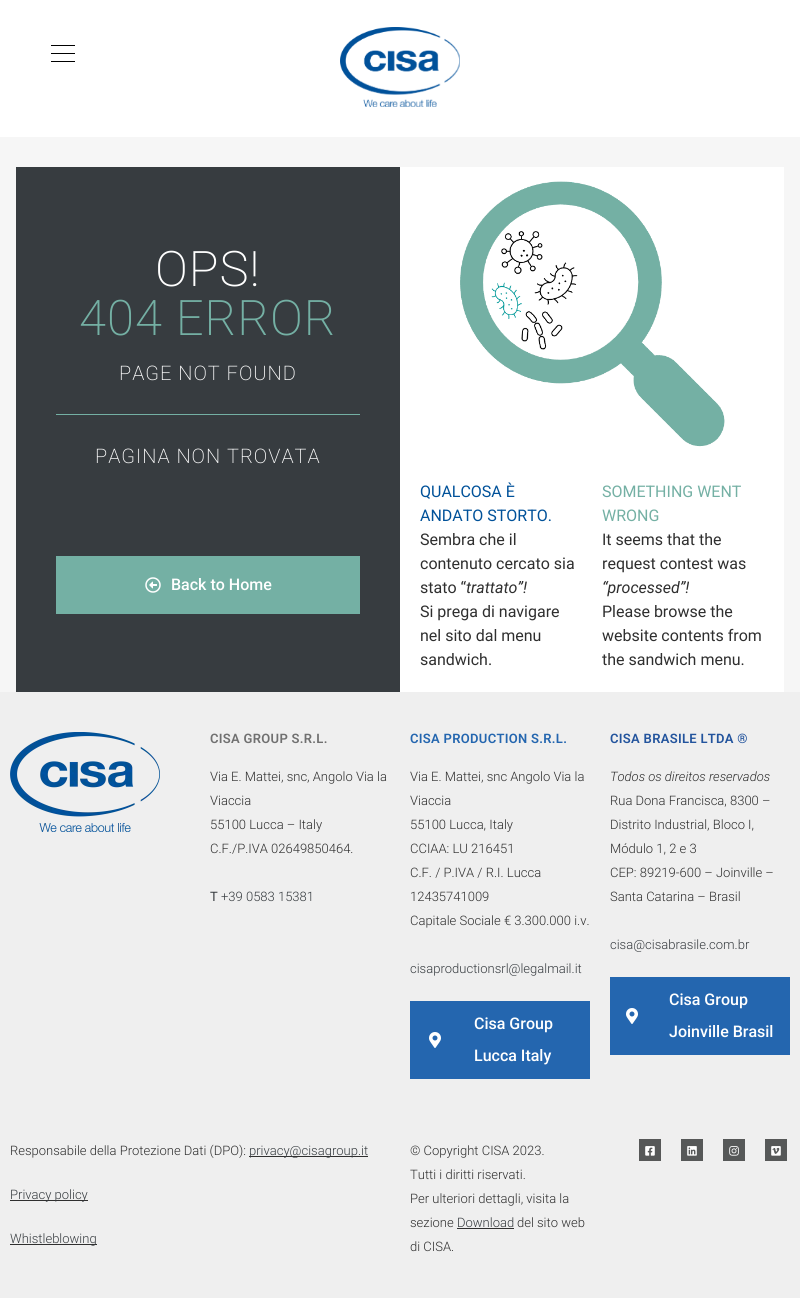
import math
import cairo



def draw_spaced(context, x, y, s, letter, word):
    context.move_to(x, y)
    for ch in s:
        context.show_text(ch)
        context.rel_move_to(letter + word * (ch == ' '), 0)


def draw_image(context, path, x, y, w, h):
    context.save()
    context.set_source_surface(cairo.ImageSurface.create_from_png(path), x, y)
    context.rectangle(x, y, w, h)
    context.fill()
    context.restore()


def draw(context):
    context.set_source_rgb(246 / 255, 246 / 255, 246 / 255)
    context.paint()
    context.set_source_rgb(1, 1, 1)
    context.rectangle(0, 0, 800, 137)
    context.fill()
    context.set_source_rgb(0, 0, 0)
    context.rectangle(51, 45, 24, 1)
    context.fill()
    context.rectangle(51, 53, 24, 1)
    context.fill()
    context.rectangle(51, 61, 24, 1)
    context.fill()
    draw_image(context, "images/1.png", 340, 27, 120, 80)
    context.set_source_rgb(55 / 255, 60 / 255, 64 / 255)
    context.rectangle(16, 167, 384, 525)
    context.fill()
    context.set_source_rgb(116 / 255, 176 / 255, 164 / 255)
    context.rectangle(56, 414, 304, 1)
    context.fill()
    context.rectangle(56, 556, 304, 58)
    context.fill()
    draw_image(context, "images/2.png", 145, 577, 16, 16)
    context.set_source_rgb(1, 1, 1)
    context.rectangle(400, 167, 384, 525)
    context.fill()
    draw_image(context, "images/3.png", 460, 181, 265, 266)
    context.set_source_rgb(239 / 255, 239 / 255, 239 / 255)
    context.rectangle(0, 692, 800, 606)
    context.fill()
    draw_image(context, "images/4.png", 10, 732, 150, 100)
    context.set_source_rgb(36 / 255, 102 / 255, 175 / 255)
    context.rectangle(410, 1001, 180, 78)
    context.fill()
    draw_image(context, "images/5.png", 429, 1032, 12, 16)
    context.rectangle(610, 977, 180, 78)
    context.fill()
    draw_image(context, "images/5.png", 626, 1008, 12, 16)
    context.set_source_rgb(47 / 255, 47 / 255, 47 / 255)
    context.rectangle(249, 1156, 119, 1)
    context.fill()
    context.rectangle(10, 1200, 78, 1)
    context.fill()
    context.rectangle(10, 1244, 87, 1)
    context.fill()
    context.rectangle(457, 1228, 57, 1)
    context.fill()
    context.set_source_rgb(86 / 255, 88 / 255, 88 / 255)
    context.rectangle(639, 1139, 22, 22)
    context.fill()
    draw_image(context, "images/6.png", 645, 1146, 10, 10)
    context.rectangle(681, 1139, 22, 22)
    context.fill()
    draw_image(context, "images/7.png", 687, 1146, 10, 10)
    context.rectangle(723, 1139, 22, 22)
    context.fill()
    draw_image(context, "images/8.png", 729, 1146, 10, 10)
    context.rectangle(765, 1139, 22, 22)
    context.fill()
    draw_image(context, "images/9.png", 771, 1146, 10, 10)
    context.select_font_face("Roboto ExtraLight")
    context.set_font_size(49)
    context.set_source_rgb(1, 1, 1)
    draw_spaced(context, 155, 286, "OPS!", 1, 0)
    context.set_source_rgb(116 / 255, 176 / 255, 164 / 255)
    draw_spaced(context, 79, 335, "404 ERROR", 1, 0)
    context.set_font_size(20)
    context.set_source_rgb(1, 1, 1)
    draw_spaced(context, 119, 380, "PAGE NOT FOUND", 1, 0)
    draw_spaced(context, 95, 463, "PAGINA NON TROVATA", 1, 0)
    context.select_font_face("Roboto Medium")
    context.set_font_size(16)
    context.move_to(171, 590)
    context.show_text("Back to Home")
    context.select_font_face("Roboto")
    context.set_source_rgb(0, 81 / 255, 153 / 255)
    context.move_to(420, 497)
    context.show_text("QUALCOSA È")
    context.move_to(420, 521)
    context.show_text("ANDATO STORTO.")
    context.set_source_rgb(47 / 255, 47 / 255, 47 / 255)
    context.move_to(420, 545)
    context.show_text("Sembra che il")
    context.move_to(420, 569)
    context.show_text("contenuto cercato sia")
    context.move_to(420, 593)
    context.show_text("stato “")
    context.select_font_face("Roboto", cairo.FontSlant.ITALIC)
    context.move_to(466, 593)
    context.show_text("trattato”!")
    context.select_font_face("Roboto")
    context.move_to(420, 617)
    context.show_text("Si prega di navigare")
    context.move_to(420, 641)
    context.show_text("nel sito dal menu")
    context.move_to(420, 665)
    context.show_text("sandwich.")
    context.set_source_rgb(116 / 255, 176 / 255, 164 / 255)
    context.move_to(602, 497)
    context.show_text("SOMETHING WENT")
    context.move_to(602, 521)
    context.show_text("WRONG")
    context.set_source_rgb(47 / 255, 47 / 255, 47 / 255)
    context.move_to(602, 545)
    context.show_text("It seems that the")
    context.move_to(602, 569)
    context.show_text("request contest was")
    context.select_font_face("Roboto", cairo.FontSlant.ITALIC)
    context.move_to(602, 593)
    context.show_text("“processed”!")
    context.select_font_face("Roboto")
    context.move_to(602, 617)
    context.show_text("Please browse the")
    context.move_to(602, 641)
    context.show_text("website contents from")
    context.move_to(602, 665)
    context.show_text("the sandwich menu.")
    context.select_font_face("Roboto SemiBold")
    context.set_font_size(13)
    context.set_source_rgb(112 / 255, 112 / 255, 112 / 255)
    draw_spaced(context, 210, 743, "CISA GROUP S.R.L.", 0.3, 0)
    context.select_font_face("Roboto Light")
    context.set_source_rgb(47 / 255, 47 / 255, 47 / 255)
    context.move_to(210, 781)
    context.show_text("Via E. Mattei, snc, Angolo Via la")
    context.move_to(210, 805)
    context.show_text("Viaccia")
    context.move_to(210, 829)
    context.show_text("55100 Lucca – Italy")
    context.move_to(210, 853)
    context.show_text("C.F./P.IVA 02649850464.")
    context.select_font_face("Roboto")
    context.set_source_rgb(55 / 255, 60 / 255, 64 / 255)
    context.move_to(210, 901)
    context.show_text("T")
    context.select_font_face("Roboto Light")
    context.move_to(221, 901)
    context.show_text("+39 0583 15381")
    context.select_font_face("Roboto SemiBold")
    context.set_source_rgb(36 / 255, 102 / 255, 175 / 255)
    draw_spaced(context, 410, 743, "CISA PRODUCTION S.R.L.", 0.3, 0)
    context.select_font_face("Roboto Light")
    context.set_source_rgb(47 / 255, 47 / 255, 47 / 255)
    context.move_to(410, 781)
    context.show_text("Via E. Mattei, snc Angolo Via la")
    context.move_to(410, 805)
    context.show_text("Viaccia")
    context.move_to(410, 829)
    context.show_text("55100 Lucca, Italy")
    context.move_to(410, 853)
    context.show_text("CCIAA: LU 216451")
    context.move_to(410, 877)
    context.show_text("C.F. / P.IVA / R.I. Lucca")
    context.move_to(410, 901)
    context.show_text("12435741009")
    context.move_to(410, 925)
    context.show_text("Capitale Sociale € 3.300.000 i.v.")
    context.set_source_rgb(55 / 255, 60 / 255, 64 / 255)
    context.move_to(410, 973)
    context.show_text("cisaproductionsrl@legalmail.it")
    context.select_font_face("Roboto Medium")
    context.set_font_size(16)
    context.set_source_rgb(1, 1, 1)
    context.move_to(474, 1029)
    context.show_text("Cisa Group")
    context.move_to(474, 1061)
    context.show_text("Lucca Italy")
    context.select_font_face("Roboto SemiBold")
    context.set_font_size(13)
    context.set_source_rgb(35 / 255, 84 / 255, 157 / 255)
    draw_spaced(context, 610, 743, "CISA BRASILE LTDA ®", 0.3, 0)
    context.select_font_face("Roboto Light", cairo.FontSlant.ITALIC)
    context.set_source_rgb(47 / 255, 47 / 255, 47 / 255)
    context.move_to(610, 781)
    context.show_text("Todos os direitos reservados")
    context.select_font_face("Roboto Light")
    context.move_to(610, 805)
    context.show_text("Rua Dona Francisca, 8300 –")
    context.move_to(610, 829)
    context.show_text("Distrito Industrial, Bloco I,")
    context.move_to(610, 853)
    context.show_text("Módulo 1, 2 e 3")
    context.move_to(610, 877)
    context.show_text("CEP: 89219-600 – Joinville –")
    context.move_to(610, 901)
    context.show_text("Santa Catarina – Brasil")
    context.set_source_rgb(55 / 255, 60 / 255, 64 / 255)
    context.move_to(610, 949)
    context.show_text("cisa@cisabrasile.com.br")
    context.select_font_face("Roboto Medium")
    context.set_font_size(16)
    context.set_source_rgb(1, 1, 1)
    context.move_to(669, 1005)
    context.show_text("Cisa Group")
    context.move_to(669, 1037)
    context.show_text("Joinville Brasil")
    context.select_font_face("Roboto Light")
    context.set_font_size(13)
    context.set_source_rgb(47 / 255, 47 / 255, 47 / 255)
    context.move_to(10, 1155)
    context.show_text("Responsabile della Protezione Dati (DPO):")
    context.set_source_rgb(55 / 255, 60 / 255, 64 / 255)
    context.move_to(249, 1155)
    context.show_text("privacy@cisagroup.it")
    context.move_to(10, 1199)
    context.show_text("Privacy policy")
    context.move_to(10, 1243)
    context.show_text("Whistleblowing")
    context.set_source_rgb(47 / 255, 47 / 255, 47 / 255)
    context.move_to(410, 1155)
    context.show_text("© Copyright CISA 2023.")
    context.move_to(410, 1179)
    context.show_text("Tutti i diritti riservati.")
    context.move_to(410, 1203)
    context.show_text("Per ulteriori dettagli, visita la")
    context.move_to(410, 1227)
    context.show_text("sezione")
    context.set_source_rgb(55 / 255, 60 / 255, 64 / 255)
    context.move_to(457, 1227)
    context.show_text("Download")
    context.set_source_rgb(47 / 255, 47 / 255, 47 / 255)
    context.move_to(517, 1227)
    context.show_text("del sito web")
    context.move_to(410, 1251)
    context.show_text("di CISA.")


surface = cairo.ImageSurface(cairo.Format.RGB24, 800, 1298)
context = cairo.Context(surface)
options = cairo.FontOptions()
options.set_hint_metrics(cairo.HintMetrics.OFF)
options.set_hint_style(cairo.HintStyle.NONE)
context.set_font_options(options)
context.set_miter_limit(4)
draw(context)
surface.write_to_png("out.png")
